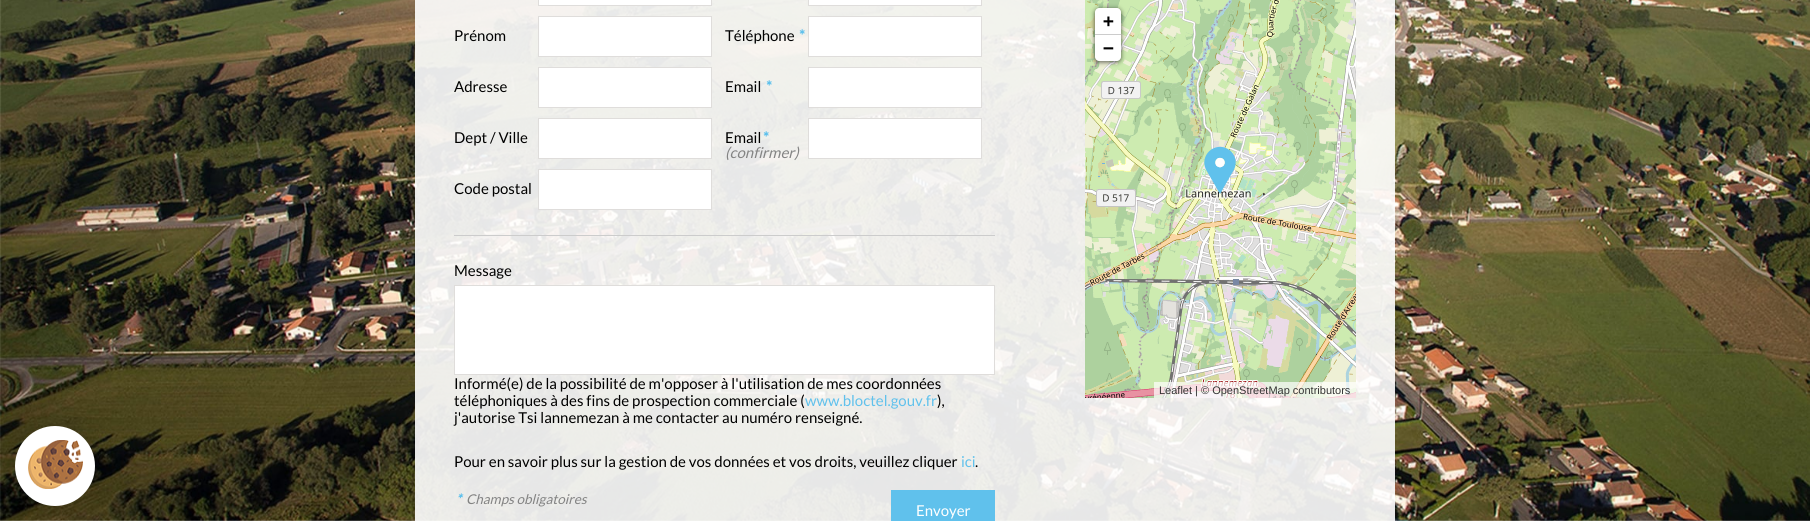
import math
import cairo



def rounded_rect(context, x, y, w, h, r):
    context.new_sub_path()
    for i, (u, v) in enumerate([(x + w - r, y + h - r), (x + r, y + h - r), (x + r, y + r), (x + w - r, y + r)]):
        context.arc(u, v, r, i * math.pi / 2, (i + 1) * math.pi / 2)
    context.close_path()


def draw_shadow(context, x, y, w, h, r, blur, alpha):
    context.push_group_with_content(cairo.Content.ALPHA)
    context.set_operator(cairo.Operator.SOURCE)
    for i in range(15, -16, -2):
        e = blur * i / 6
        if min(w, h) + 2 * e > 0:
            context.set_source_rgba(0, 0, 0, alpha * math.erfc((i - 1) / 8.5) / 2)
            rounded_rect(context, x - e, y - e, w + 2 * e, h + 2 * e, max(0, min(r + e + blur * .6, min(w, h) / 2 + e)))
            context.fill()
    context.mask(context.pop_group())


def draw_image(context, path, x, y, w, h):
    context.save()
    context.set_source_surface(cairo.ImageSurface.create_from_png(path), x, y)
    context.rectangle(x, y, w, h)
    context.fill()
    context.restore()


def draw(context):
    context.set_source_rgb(1, 1, 1)
    context.paint()
    draw_image(context, "images/1.png", 0, 0, 1810, 521)
    context.set_source_rgb(0, 0, 0)
    draw_shadow(context, 15, 426, 80, 80, 40, 15, 0.15)
    context.set_source_rgb(1, 1, 1)
    context.arc(55, 466, 40, 0, 2 * math.pi)
    context.fill()
    draw_image(context, "images/2.png", 28, 440, 55, 49)
    context.set_source_rgba(1, 1, 1, 0.9)
    context.rectangle(415, 0, 980, 521)
    context.fill()
    context.set_source_rgb(1, 1, 1)
    context.rectangle(538.5, -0.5, 173, 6)
    context.fill_preserve()
    context.set_source_rgb(223 / 255, 221 / 255, 219 / 255)
    context.set_line_width(1)
    context.stroke()
    context.set_source_rgb(1, 1, 1)
    context.rectangle(538.5, 16.5, 173, 40)
    context.fill_preserve()
    context.set_source_rgb(223 / 255, 221 / 255, 219 / 255)
    context.stroke()
    context.set_source_rgb(1, 1, 1)
    context.rectangle(538.5, 67.5, 173, 40)
    context.fill_preserve()
    context.set_source_rgb(223 / 255, 221 / 255, 219 / 255)
    context.stroke()
    context.set_source_rgb(1, 1, 1)
    context.rectangle(538.5, 118.5, 173, 40)
    context.fill_preserve()
    context.set_source_rgb(223 / 255, 221 / 255, 219 / 255)
    context.stroke()
    context.set_source_rgb(1, 1, 1)
    context.rectangle(538.5, 169.5, 173, 40)
    context.fill_preserve()
    context.set_source_rgb(223 / 255, 221 / 255, 219 / 255)
    context.stroke()
    context.set_source_rgb(1, 1, 1)
    context.rectangle(808.5, -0.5, 173, 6)
    context.fill_preserve()
    context.set_source_rgb(223 / 255, 221 / 255, 219 / 255)
    context.stroke()
    context.set_source_rgb(1, 1, 1)
    context.rectangle(808.5, 16.5, 173, 40)
    context.fill_preserve()
    context.set_source_rgb(223 / 255, 221 / 255, 219 / 255)
    context.stroke()
    context.set_source_rgb(1, 1, 1)
    context.rectangle(808.5, 67.5, 173, 40)
    context.fill_preserve()
    context.set_source_rgb(223 / 255, 221 / 255, 219 / 255)
    context.stroke()
    context.set_source_rgb(1, 1, 1)
    context.rectangle(808.5, 118.5, 173, 40)
    context.fill_preserve()
    context.set_source_rgb(223 / 255, 221 / 255, 219 / 255)
    context.stroke()
    context.set_source_rgb(204 / 255, 204 / 255, 204 / 255)
    context.rectangle(454, 235, 541, 1)
    context.fill()
    context.set_source_rgb(1, 1, 1)
    context.rectangle(454.5, 285.5, 540, 89)
    context.fill_preserve()
    context.set_source_rgb(223 / 255, 221 / 255, 219 / 255)
    context.stroke()
    context.set_source_rgb(96 / 255, 193 / 255, 236 / 255)
    context.rectangle(891, 490, 104, 31)
    context.fill()
    draw_image(context, "images/3.png", 1085, 0, 199, 131)
    draw_image(context, "images/4.png", 1284, 0, 72, 131)
    draw_image(context, "images/5.png", 1085, 131, 199, 256)
    draw_image(context, "images/6.png", 1284, 131, 72, 256)
    draw_image(context, "images/7.png", 1085, 387, 199, 11)
    draw_image(context, "images/8.png", 1284, 387, 72, 11)
    draw_image(context, "images/9.png", 1204, 146, 32, 48)
    context.set_source_rgb(0, 0, 0)
    draw_shadow(context, 1095, 9, 26, 53, 4, 2.5, 0.65)
    context.set_source_rgb(1, 1, 1)
    context.new_path()
    context.move_to(1099, 8)
    context.line_to(1117, 8)
    context.curve_to(1119, 8, 1121, 10, 1121, 12)
    context.line_to(1121, 35)
    context.line_to(1095, 35)
    context.line_to(1095, 12)
    context.curve_to(1095, 10, 1097, 8, 1099, 8)
    context.close_path()
    context.fill()
    context.set_source_rgb(204 / 255, 204 / 255, 204 / 255)
    context.rectangle(1095, 34, 26, 1)
    context.fill()
    context.set_source_rgb(1, 1, 1)
    context.new_path()
    context.move_to(1095, 35)
    context.line_to(1121, 35)
    context.line_to(1121, 57)
    context.curve_to(1121, 59, 1119, 61, 1117, 61)
    context.line_to(1099, 61)
    context.curve_to(1097, 61, 1095, 59, 1095, 57)
    context.close_path()
    context.fill()
    context.set_source_rgba(1, 1, 1, 0.7)
    context.rectangle(1154, 382, 202, 16)
    context.fill()
    context.select_font_face("Lato")
    context.set_font_size(15)
    context.set_source_rgb(0, 0, 0)
    context.move_to(454, 41)
    context.show_text("Prénom")
    context.move_to(454, 92)
    context.show_text("Adresse")
    context.move_to(454, 143)
    context.show_text("Dept / Ville")
    context.move_to(454, 194)
    context.show_text("Code postal")
    context.move_to(725, 41)
    context.show_text("Téléphone")
    context.select_font_face("Lato", cairo.FontSlant.NORMAL, cairo.FontWeight.BOLD)
    context.set_source_rgb(96 / 255, 193 / 255, 236 / 255)
    context.move_to(799, 41)
    context.show_text("*")
    context.select_font_face("Lato")
    context.set_source_rgb(0, 0, 0)
    context.move_to(725, 92)
    context.show_text("Email")
    context.select_font_face("Lato", cairo.FontSlant.NORMAL, cairo.FontWeight.BOLD)
    context.set_source_rgb(96 / 255, 193 / 255, 236 / 255)
    context.move_to(766, 92)
    context.show_text("*")
    context.select_font_face("Lato")
    context.set_source_rgb(0, 0, 0)
    context.move_to(725, 143)
    context.show_text("Email")
    context.select_font_face("Lato", cairo.FontSlant.NORMAL, cairo.FontWeight.BOLD)
    context.set_source_rgb(96 / 255, 193 / 255, 236 / 255)
    context.move_to(763, 143)
    context.show_text("*")
    context.select_font_face("Lato", cairo.FontSlant.ITALIC)
    context.set_source_rgb(131 / 255, 131 / 255, 131 / 255)
    context.move_to(725, 158)
    context.show_text("(confirmer)")
    context.select_font_face("Lato")
    context.set_source_rgb(0, 0, 0)
    context.move_to(454, 276)
    context.show_text("Message")
    context.move_to(454, 389)
    context.show_text("Informé(e) de la possibilité de m'opposer à l'utilisation de mes coordonnées")
    context.move_to(454, 406)
    context.show_text("téléphoniques à des fins de prospection commerciale (")
    context.set_source_rgb(96 / 255, 193 / 255, 236 / 255)
    context.move_to(805, 406)
    context.show_text("www.bloctel.gouv.fr")
    context.set_source_rgb(0, 0, 0)
    context.move_to(937, 406)
    context.show_text("),")
    context.move_to(454, 423)
    context.show_text("j'autorise Tsi lannemezan à me contacter au numéro renseigné.")
    context.move_to(454, 467)
    context.show_text("Pour en savoir plus sur la gestion de vos données et vos droits, veuillez cliquer")
    context.set_source_rgb(96 / 255, 193 / 255, 236 / 255)
    context.move_to(961, 467)
    context.show_text("ici")
    context.set_source_rgb(0, 0, 0)
    context.move_to(975, 467)
    context.show_text(".")
    context.select_font_face("Lato", cairo.FontSlant.ITALIC, cairo.FontWeight.BOLD)
    context.set_font_size(13.5)
    context.set_source_rgb(96 / 255, 193 / 255, 236 / 255)
    context.move_to(456, 504)
    context.show_text("*")
    context.select_font_face("Lato", cairo.FontSlant.ITALIC)
    context.set_source_rgb(131 / 255, 131 / 255, 131 / 255)
    context.move_to(466, 504)
    context.show_text("Champs obligatoires")
    context.select_font_face("Lato")
    context.set_font_size(15)
    context.set_source_rgb(1, 1, 1)
    context.move_to(916, 516)
    context.show_text("Envoyer")
    context.select_font_face("DejaVu Sans Mono", cairo.FontSlant.NORMAL, cairo.FontWeight.BOLD)
    context.set_font_size(18)
    context.set_source_rgb(0, 0, 0)
    context.move_to(1103, 27)
    context.show_text("+")
    context.move_to(1103, 54)
    context.show_text("−")
    context.select_font_face("Liberation Sans")
    context.set_font_size(11)
    context.set_source_rgb(51 / 255, 51 / 255, 51 / 255)
    context.move_to(1159, 394)
    context.show_text("Leaflet | © OpenStreetMap contributors")


surface = cairo.ImageSurface(cairo.Format.RGB24, 1810, 521)
context = cairo.Context(surface)
options = cairo.FontOptions()
options.set_hint_metrics(cairo.HintMetrics.OFF)
options.set_hint_style(cairo.HintStyle.NONE)
context.set_font_options(options)
context.set_miter_limit(4)
draw(context)
surface.write_to_png("out.png")
